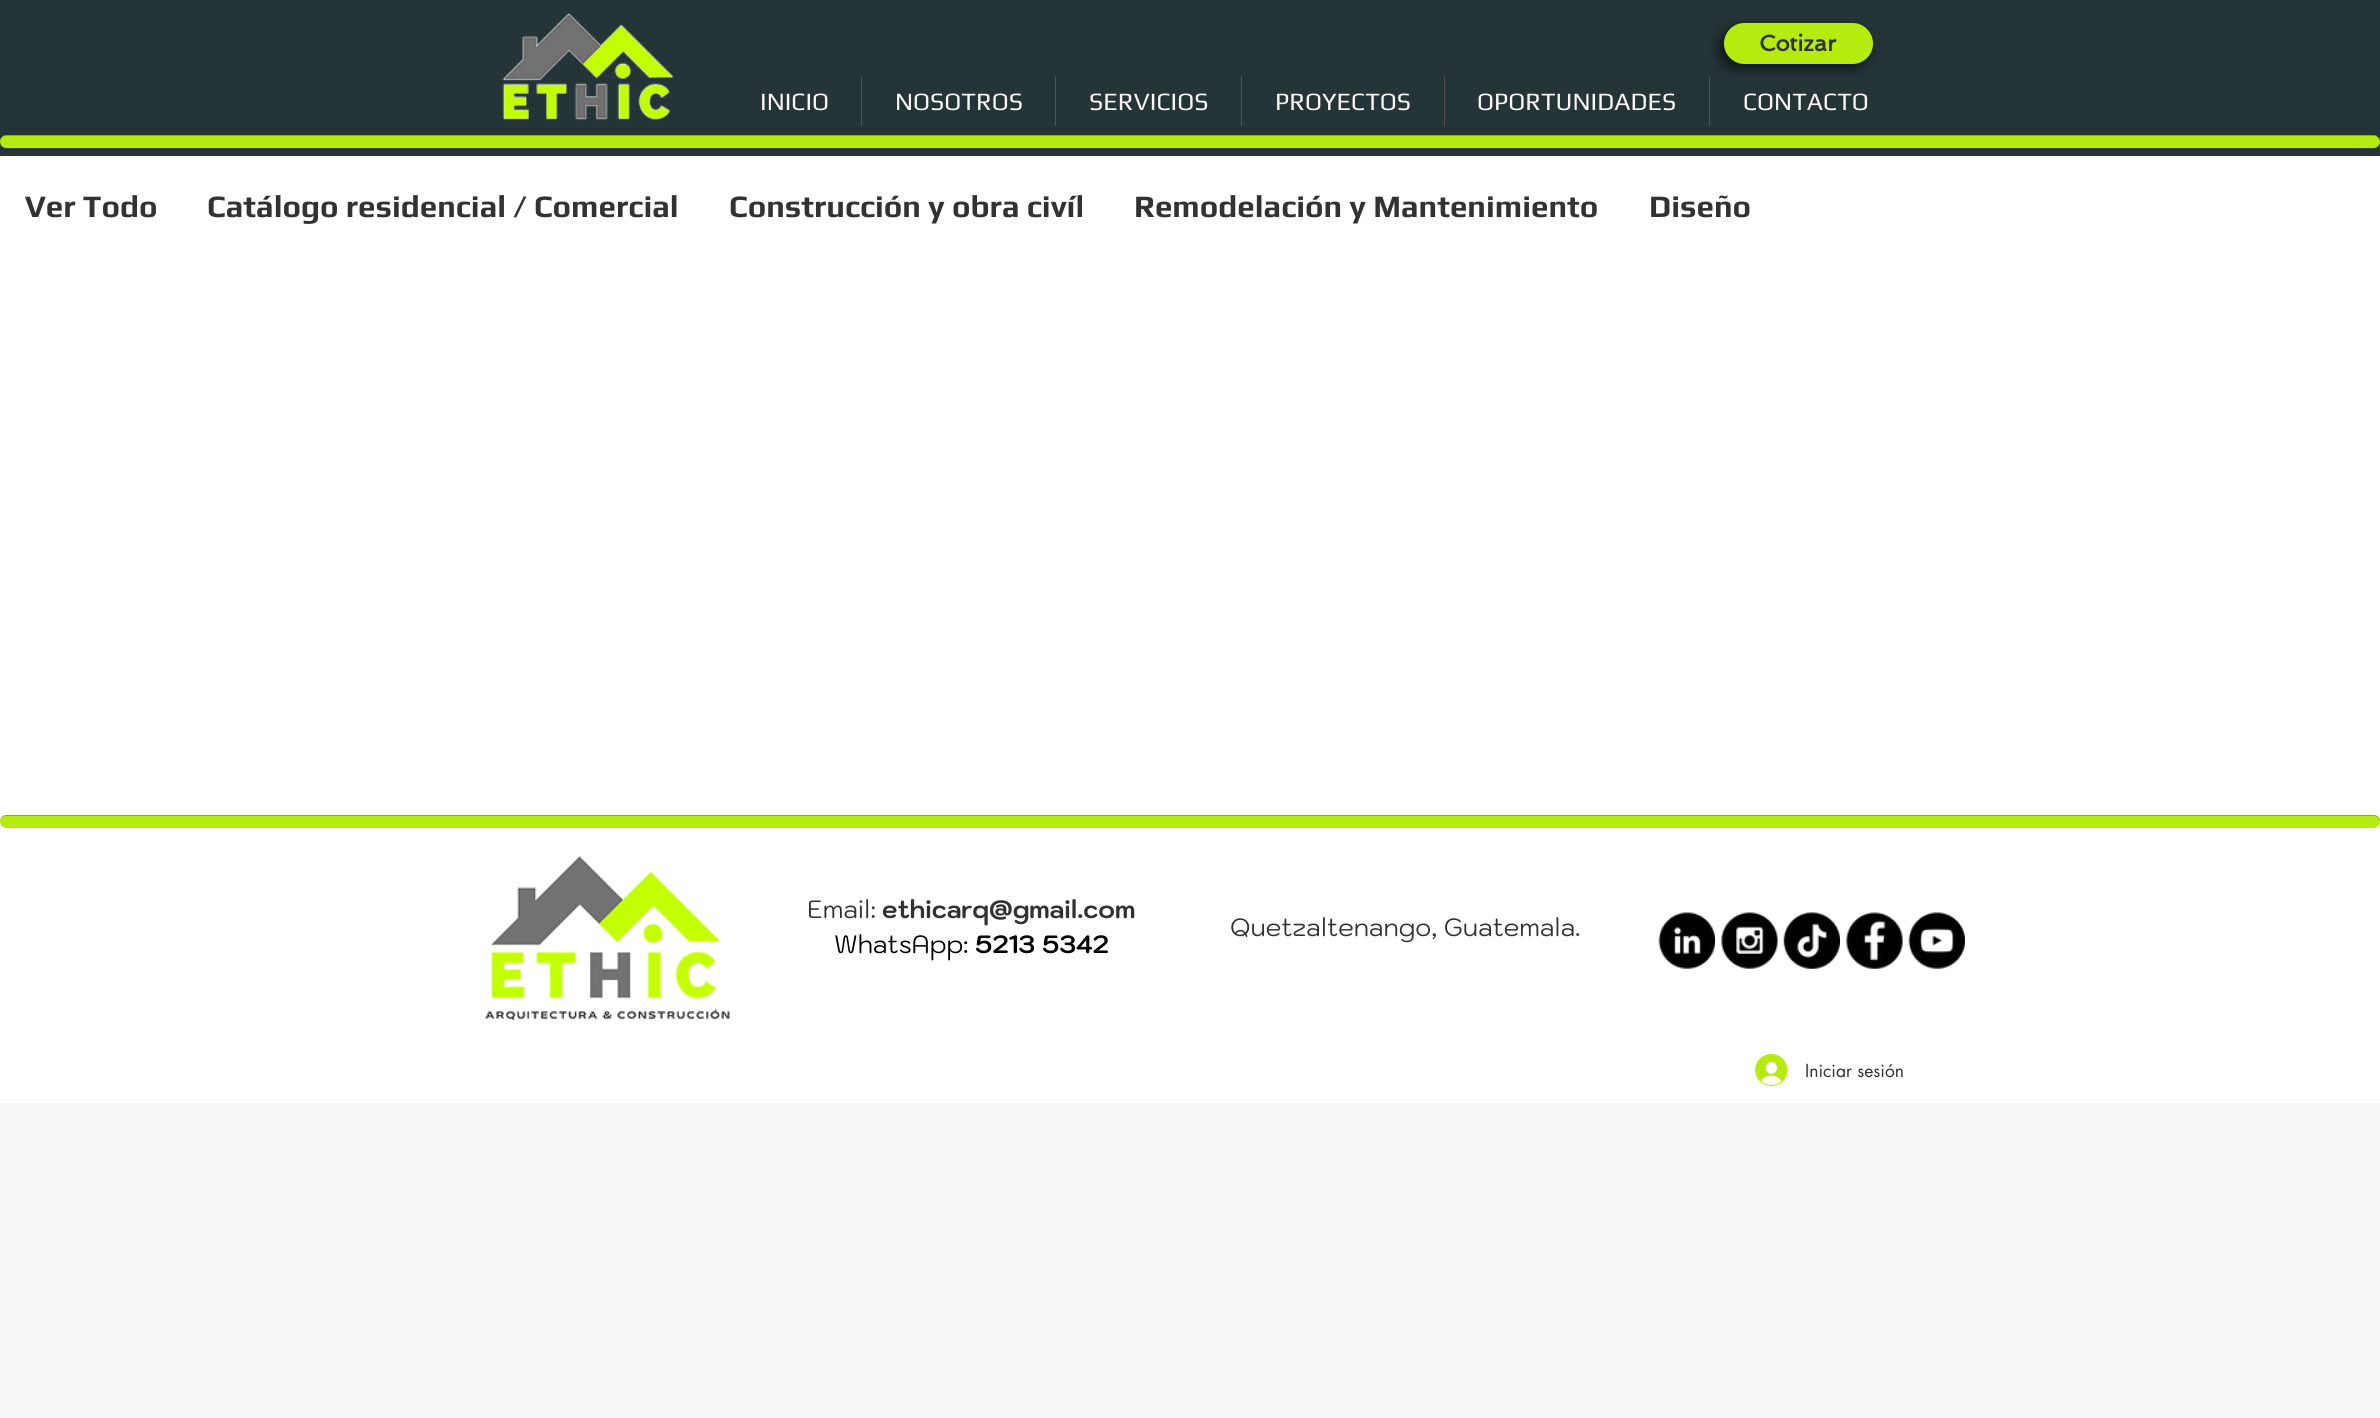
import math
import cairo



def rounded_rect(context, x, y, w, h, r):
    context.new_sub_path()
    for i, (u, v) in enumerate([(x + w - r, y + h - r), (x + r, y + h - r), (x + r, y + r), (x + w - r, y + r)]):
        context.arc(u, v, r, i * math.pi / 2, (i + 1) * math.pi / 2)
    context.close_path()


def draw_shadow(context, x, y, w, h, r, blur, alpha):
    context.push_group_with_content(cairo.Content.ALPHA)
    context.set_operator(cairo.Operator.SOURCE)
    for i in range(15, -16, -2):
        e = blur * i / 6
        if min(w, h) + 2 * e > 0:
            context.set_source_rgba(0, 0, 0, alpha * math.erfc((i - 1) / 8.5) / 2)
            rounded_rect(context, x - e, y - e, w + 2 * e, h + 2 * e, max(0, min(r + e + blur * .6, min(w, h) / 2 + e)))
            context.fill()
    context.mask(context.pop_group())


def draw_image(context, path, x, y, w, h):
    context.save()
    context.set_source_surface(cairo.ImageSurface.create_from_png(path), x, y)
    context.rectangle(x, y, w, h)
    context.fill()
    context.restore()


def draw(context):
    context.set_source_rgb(248 / 255, 248 / 255, 248 / 255)
    context.paint()
    context.set_source_rgb(37 / 255, 52 / 255, 55 / 255)
    context.rectangle(0, 0, 2380, 156)
    context.fill()
    draw_image(context, "images/1.png", 502, 13, 172, 108)
    context.set_source_rgb(0, 0, 0)
    draw_shadow(context, 1719, 28, 149, 41, 20.5, 6, 0.6)
    context.set_source_rgb(182 / 255, 235 / 255, 16 / 255)
    rounded_rect(context, 1724, 23, 149, 41, 20.5)
    context.fill()
    context.set_source_rgb(88 / 255, 85 / 255, 81 / 255)
    context.rectangle(861, 76, 1, 50)
    context.fill()
    context.rectangle(1055, 76, 1, 50)
    context.fill()
    context.rectangle(1241, 76, 1, 50)
    context.fill()
    context.rectangle(1444, 76, 1, 50)
    context.fill()
    context.rectangle(1709, 76, 1, 50)
    context.fill()
    context.set_source_rgb(59 / 255, 72 / 255, 75 / 255)
    context.new_path()
    context.move_to(0, 142)
    context.curve_to(0, 146, 3, 149, 6, 149)
    context.line_to(2374, 149)
    context.curve_to(2377, 149, 2380, 146, 2380, 142)
    context.curve_to(2380, 145, 2377, 148, 2374, 148)
    context.line_to(6, 148)
    context.curve_to(3, 148, 0, 145, 0, 142)
    context.close_path()
    context.fill()
    context.set_source_rgb(182 / 255, 235 / 255, 16 / 255)
    rounded_rect(context, 0, 135, 2380, 13, 6.5)
    context.fill()
    context.set_source_rgba(0, 0, 0, 0.25)
    context.new_path()
    context.move_to(6, 136)
    context.line_to(2374, 136)
    context.line_to(2377, 137)
    context.curve_to(2379, 139, 2380, 141, 2380, 143)
    context.curve_to(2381, 139, 2378, 135, 2374, 135)
    context.line_to(6, 135)
    context.curve_to(3, 135, 1, 137, 0, 140)
    context.line_to(0, 142)
    context.curve_to(0, 139, 2, 136, 6, 136)
    context.close_path()
    context.fill()
    context.set_source_rgb(1, 1, 1)
    context.rectangle(0, 156, 2380, 947)
    context.fill()
    context.set_source_rgb(182 / 255, 235 / 255, 16 / 255)
    rounded_rect(context, 0, 815, 2380, 13, 6.5)
    context.fill()
    context.set_source_rgba(0, 0, 0, 0.25)
    context.new_path()
    context.move_to(6, 816)
    context.line_to(2374, 816)
    context.line_to(2377, 817)
    context.curve_to(2379, 819, 2380, 821, 2380, 823)
    context.curve_to(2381, 819, 2378, 815, 2374, 815)
    context.line_to(6, 815)
    context.curve_to(3, 815, 1, 817, 0, 820)
    context.line_to(0, 822)
    context.curve_to(0, 819, 2, 816, 6, 816)
    context.close_path()
    context.fill()
    draw_image(context, "images/2.png", 485, 856, 246, 165)
    draw_image(context, "images/3.png", 1658, 912, 57, 57)
    draw_image(context, "images/4.png", 1721, 912, 57, 57)
    draw_image(context, "images/5.png", 1783, 912, 57, 57)
    draw_image(context, "images/6.png", 1846, 912, 57, 57)
    draw_image(context, "images/7.png", 1908, 912, 57, 57)
    draw_image(context, "images/8.png", 1755, 1054, 33, 32)
    context.select_font_face("Spinnaker", cairo.FontSlant.NORMAL, cairo.FontWeight.BOLD)
    context.set_font_size(22.5)
    context.set_source_rgb(50 / 255, 50 / 255, 50 / 255)
    context.move_to(1759, 51)
    context.show_text("Cotizar")
    context.select_font_face("Play")
    context.set_font_size(25)
    context.set_source_rgb(248 / 255, 248 / 255, 248 / 255)
    context.move_to(760, 110)
    context.show_text("INICIO")
    context.move_to(895, 110)
    context.show_text("NOSOTROS")
    context.move_to(1089, 110)
    context.show_text("SERVICIOS")
    context.move_to(1275, 110)
    context.show_text("PROYECTOS")
    context.move_to(1477, 110)
    context.show_text("OPORTUNIDADES")
    context.move_to(1743, 110)
    context.show_text("CONTACTO")
    context.select_font_face("Play", cairo.FontSlant.NORMAL, cairo.FontWeight.BOLD)
    context.set_font_size(31.25)
    context.set_source_rgb(50 / 255, 50 / 255, 50 / 255)
    context.move_to(25, 217)
    context.show_text("Ver Todo")
    context.move_to(207, 217)
    context.show_text("Catálogo residencial / Comercial")
    context.move_to(729, 217)
    context.show_text("Construcción y obra civíl")
    context.move_to(1134, 217)
    context.show_text("Remodelación y Mantenimiento")
    context.move_to(1649, 217)
    context.show_text("Diseño")
    context.select_font_face("Kodchasan")
    context.set_font_size(25)
    context.move_to(807, 918)
    context.show_text("Email:")
    context.select_font_face("Kodchasan", cairo.FontSlant.NORMAL, cairo.FontWeight.BOLD)
    context.move_to(882, 918)
    context.show_text("ethicarq@gmail.com")
    context.select_font_face("Kodchasan")
    context.set_source_rgb(0, 0, 0)
    context.move_to(834, 953)
    context.show_text("WhatsApp:")
    context.select_font_face("Kodchasan", cairo.FontSlant.NORMAL, cairo.FontWeight.BOLD)
    context.move_to(975, 953)
    context.show_text("5213 5342")
    context.select_font_face("Kodchasan")
    context.set_source_rgb(50 / 255, 50 / 255, 50 / 255)
    context.move_to(1230, 936)
    context.show_text("Quetzaltenango, Guatemala.")
    context.select_font_face("futura")
    context.set_font_size(17.5)
    context.move_to(1805, 1077)
    context.show_text("Iniciar sesión")


surface = cairo.ImageSurface(cairo.Format.RGB24, 2380, 1418)
context = cairo.Context(surface)
options = cairo.FontOptions()
options.set_hint_metrics(cairo.HintMetrics.OFF)
options.set_hint_style(cairo.HintStyle.NONE)
context.set_font_options(options)
context.set_miter_limit(4)
draw(context)
surface.write_to_png("out.png")
